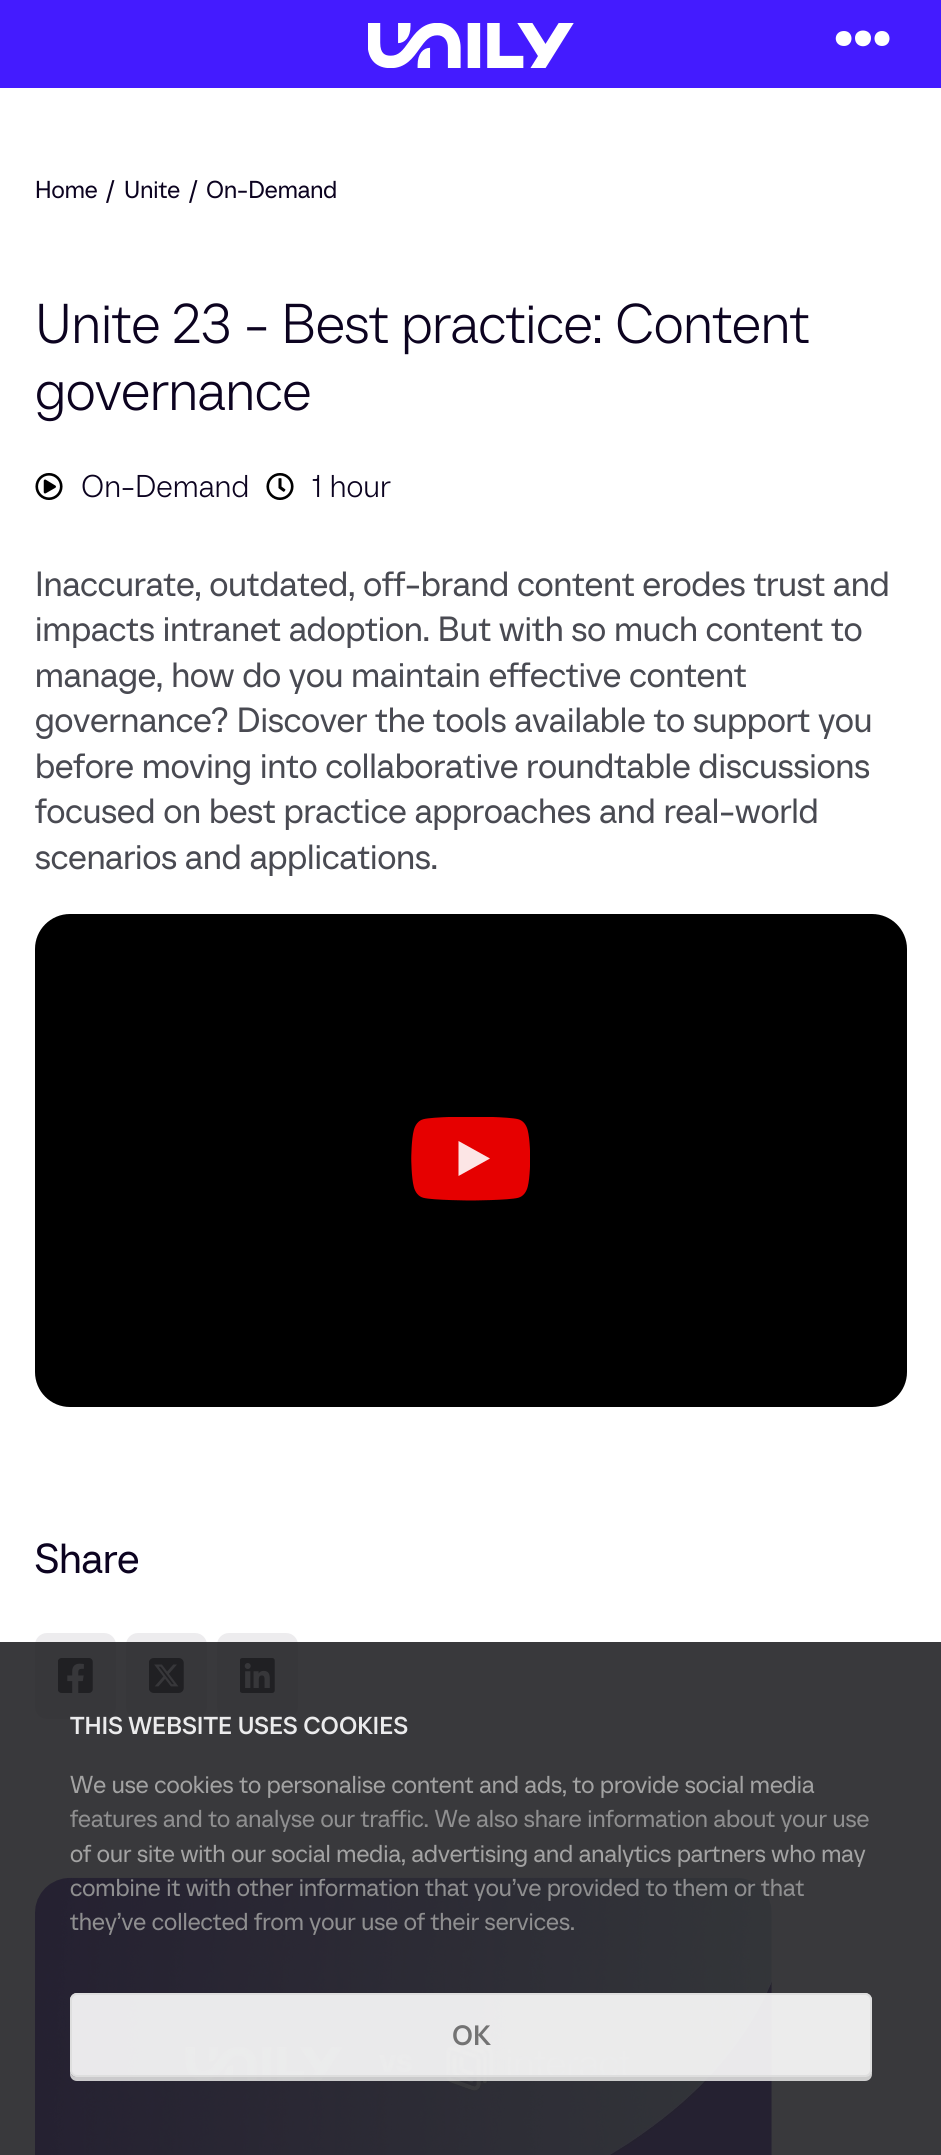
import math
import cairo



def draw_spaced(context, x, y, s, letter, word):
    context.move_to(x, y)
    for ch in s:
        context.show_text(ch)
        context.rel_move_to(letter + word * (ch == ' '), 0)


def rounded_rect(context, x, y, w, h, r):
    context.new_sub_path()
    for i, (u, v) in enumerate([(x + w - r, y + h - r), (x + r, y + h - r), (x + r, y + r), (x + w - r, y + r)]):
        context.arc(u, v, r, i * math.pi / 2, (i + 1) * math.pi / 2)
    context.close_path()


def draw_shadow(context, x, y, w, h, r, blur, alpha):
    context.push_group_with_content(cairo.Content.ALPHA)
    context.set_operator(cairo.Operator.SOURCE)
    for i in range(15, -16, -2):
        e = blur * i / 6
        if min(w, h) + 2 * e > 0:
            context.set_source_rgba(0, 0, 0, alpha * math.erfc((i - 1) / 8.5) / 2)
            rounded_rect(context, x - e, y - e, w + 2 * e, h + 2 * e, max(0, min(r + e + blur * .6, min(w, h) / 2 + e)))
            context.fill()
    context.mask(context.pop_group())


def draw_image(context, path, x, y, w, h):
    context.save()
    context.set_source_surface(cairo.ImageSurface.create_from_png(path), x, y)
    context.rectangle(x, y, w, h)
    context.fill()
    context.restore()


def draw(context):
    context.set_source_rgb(1, 1, 1)
    context.paint()
    context.set_source_rgb(68 / 255, 27 / 255, 1)
    context.rectangle(0, 0, 941, 88)
    context.fill()
    draw_image(context, "images/1.png", 368, 23, 206, 45)
    context.set_source_rgb(1, 1, 1)
    context.new_path()
    context.move_to(871, 38)
    context.curve_to(871, 49, 855, 49, 855, 38)
    context.curve_to(855, 28, 871, 28, 871, 38)
    context.close_path()
    context.move_to(882, 31)
    context.curve_to(872, 31, 872, 46, 882, 46)
    context.curve_to(892, 46, 892, 31, 882, 31)
    context.close_path()
    context.move_to(844, 31)
    context.curve_to(833, 31, 833, 46, 844, 46)
    context.curve_to(854, 46, 854, 31, 844, 31)
    context.close_path()
    context.fill()
    draw_image(context, "images/2.png", 35, 473, 28, 27)
    draw_image(context, "images/3.png", 266, 473, 28, 27)
    context.save()
    rounded_rect(context, 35, 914, 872, 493, 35)
    context.clip()
    context.set_source_rgb(0, 0, 0)
    draw_shadow(context, 35, 921, 872, 493, 7, 5, 0.1)
    context.restore()
    context.set_source_rgb(0, 0, 0)
    rounded_rect(context, 35, 914, 872, 493, 35)
    context.fill()
    draw_image(context, "images/4.png", 411, 1117, 119, 84)
    context.set_source_rgb(237 / 255, 236 / 255, 238 / 255)
    rounded_rect(context, 35, 1633, 81, 86, 12)
    context.fill()
    draw_image(context, "images/5.png", 58, 1658, 35, 35)
    rounded_rect(context, 126, 1633, 81, 86, 12)
    context.fill()
    draw_image(context, "images/6.png", 149, 1658, 35, 35)
    rounded_rect(context, 217, 1633, 81, 86, 12)
    context.fill()
    draw_image(context, "images/7.png", 240, 1658, 35, 35)
    draw_image(context, "images/8.png", 35, 1877, 737, 278)
    context.set_source_rgba(36 / 255, 36 / 255, 39 / 255, 0.9)
    context.rectangle(0, 1642, 941, 513)
    context.fill()
    context.set_source_rgba(221 / 255, 221 / 255, 221 / 255, 0.9)
    context.new_path()
    context.move_to(70, 2070)
    context.line_to(70, 2074)
    context.curve_to(70, 2078, 73, 2081, 77, 2081)
    context.line_to(865, 2081)
    context.curve_to(869, 2081, 872, 2078, 872, 2074)
    context.line_to(872, 2004)
    context.line_to(872, 2001)
    context.line_to(872, 2070)
    context.curve_to(872, 2074, 868, 2077, 864, 2077)
    context.line_to(77, 2077)
    context.curve_to(73, 2077, 70, 2074, 70, 2070)
    context.close_path()
    context.fill()
    context.set_source_rgba(1, 1, 1, 0.9)
    rounded_rect(context, 70, 1993, 802, 84, 7)
    context.fill()
    rounded_rect(context, 71, 1994, 800, 82, 6)
    context.set_source_rgba(221 / 255, 221 / 255, 221 / 255, 0.9)
    context.stroke()
    context.select_font_face("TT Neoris")
    context.set_font_size(24.5)
    context.set_source_rgb(12 / 255, 3 / 255, 32 / 255)
    context.move_to(35, 198)
    context.show_text("Home")
    context.move_to(106, 198)
    context.show_text("/")
    context.move_to(124, 198)
    context.show_text("Unite")
    context.move_to(189, 198)
    context.show_text("/")
    context.move_to(206, 198)
    context.show_text("On-Demand")
    context.select_font_face("TT Neoris Light")
    context.set_font_size(56)
    draw_spaced(context, 35, 343, "Unite 23 - Best practice: Content", -0.55, 0)
    draw_spaced(context, 35, 410, "governance", -0.55, 0)
    context.set_font_size(31.5)
    context.move_to(81, 497)
    context.show_text("On-Demand")
    context.move_to(312, 497)
    context.show_text("1 hour")
    context.select_font_face("TT Neoris")
    context.set_font_size(35)
    context.set_source_rgb(73 / 255, 74 / 255, 82 / 255)
    context.move_to(35, 596)
    context.show_text("Inaccurate, outdated, off-brand content erodes trust and")
    context.move_to(35, 641)
    context.show_text("impacts intranet adoption. But with so much content to")
    context.move_to(35, 687)
    context.show_text("manage, how do you maintain effective content")
    context.move_to(35, 732)
    context.show_text("governance? Discover the tools available to support you")
    context.move_to(35, 778)
    context.show_text("before moving into collaborative roundtable discussions")
    context.move_to(35, 823)
    context.show_text("focused on best practice approaches and real-world")
    context.move_to(35, 869)
    context.show_text("scenarios and applications.")
    context.set_font_size(42)
    context.set_source_rgb(12 / 255, 3 / 255, 32 / 255)
    context.move_to(35, 1573)
    context.show_text("Share")
    context.select_font_face("TT Neoris Medium")
    context.set_font_size(24.5)
    context.set_source_rgb(235 / 255, 235 / 255, 236 / 255)
    context.move_to(70, 1734)
    context.show_text("THIS WEBSITE USES COOKIES")
    context.select_font_face("TT Neoris")
    context.set_source_rgb(163 / 255, 163 / 255, 163 / 255)
    context.move_to(70, 1793)
    context.show_text("We use cookies to personalise content and ads, to provide social media")
    context.set_source_rgb(143 / 255, 143 / 255, 144 / 255)
    context.move_to(70, 1827)
    context.show_text("features and to analyse our traffic. We also share information about your use")
    context.set_source_rgb(163 / 255, 163 / 255, 163 / 255)
    context.move_to(70, 1862)
    context.show_text("of our site with our social media, advertising and analytics partners who may")
    context.set_source_rgb(143 / 255, 143 / 255, 144 / 255)
    context.move_to(70, 1896)
    context.show_text("combine it with other information that you’ve provided to them or that")
    context.move_to(70, 1930)
    context.show_text("they’ve collected from your use of their services.")
    context.select_font_face("TT Neoris Medium")
    context.set_font_size(28)
    context.set_source_rgb(115 / 255, 115 / 255, 115 / 255)
    context.move_to(452, 2045)
    context.show_text("OK")


surface = cairo.ImageSurface(cairo.Format.RGB24, 941, 2155)
context = cairo.Context(surface)
options = cairo.FontOptions()
options.set_hint_metrics(cairo.HintMetrics.OFF)
options.set_hint_style(cairo.HintStyle.NONE)
context.set_font_options(options)
context.set_miter_limit(4)
draw(context)
surface.write_to_png("out.png")
